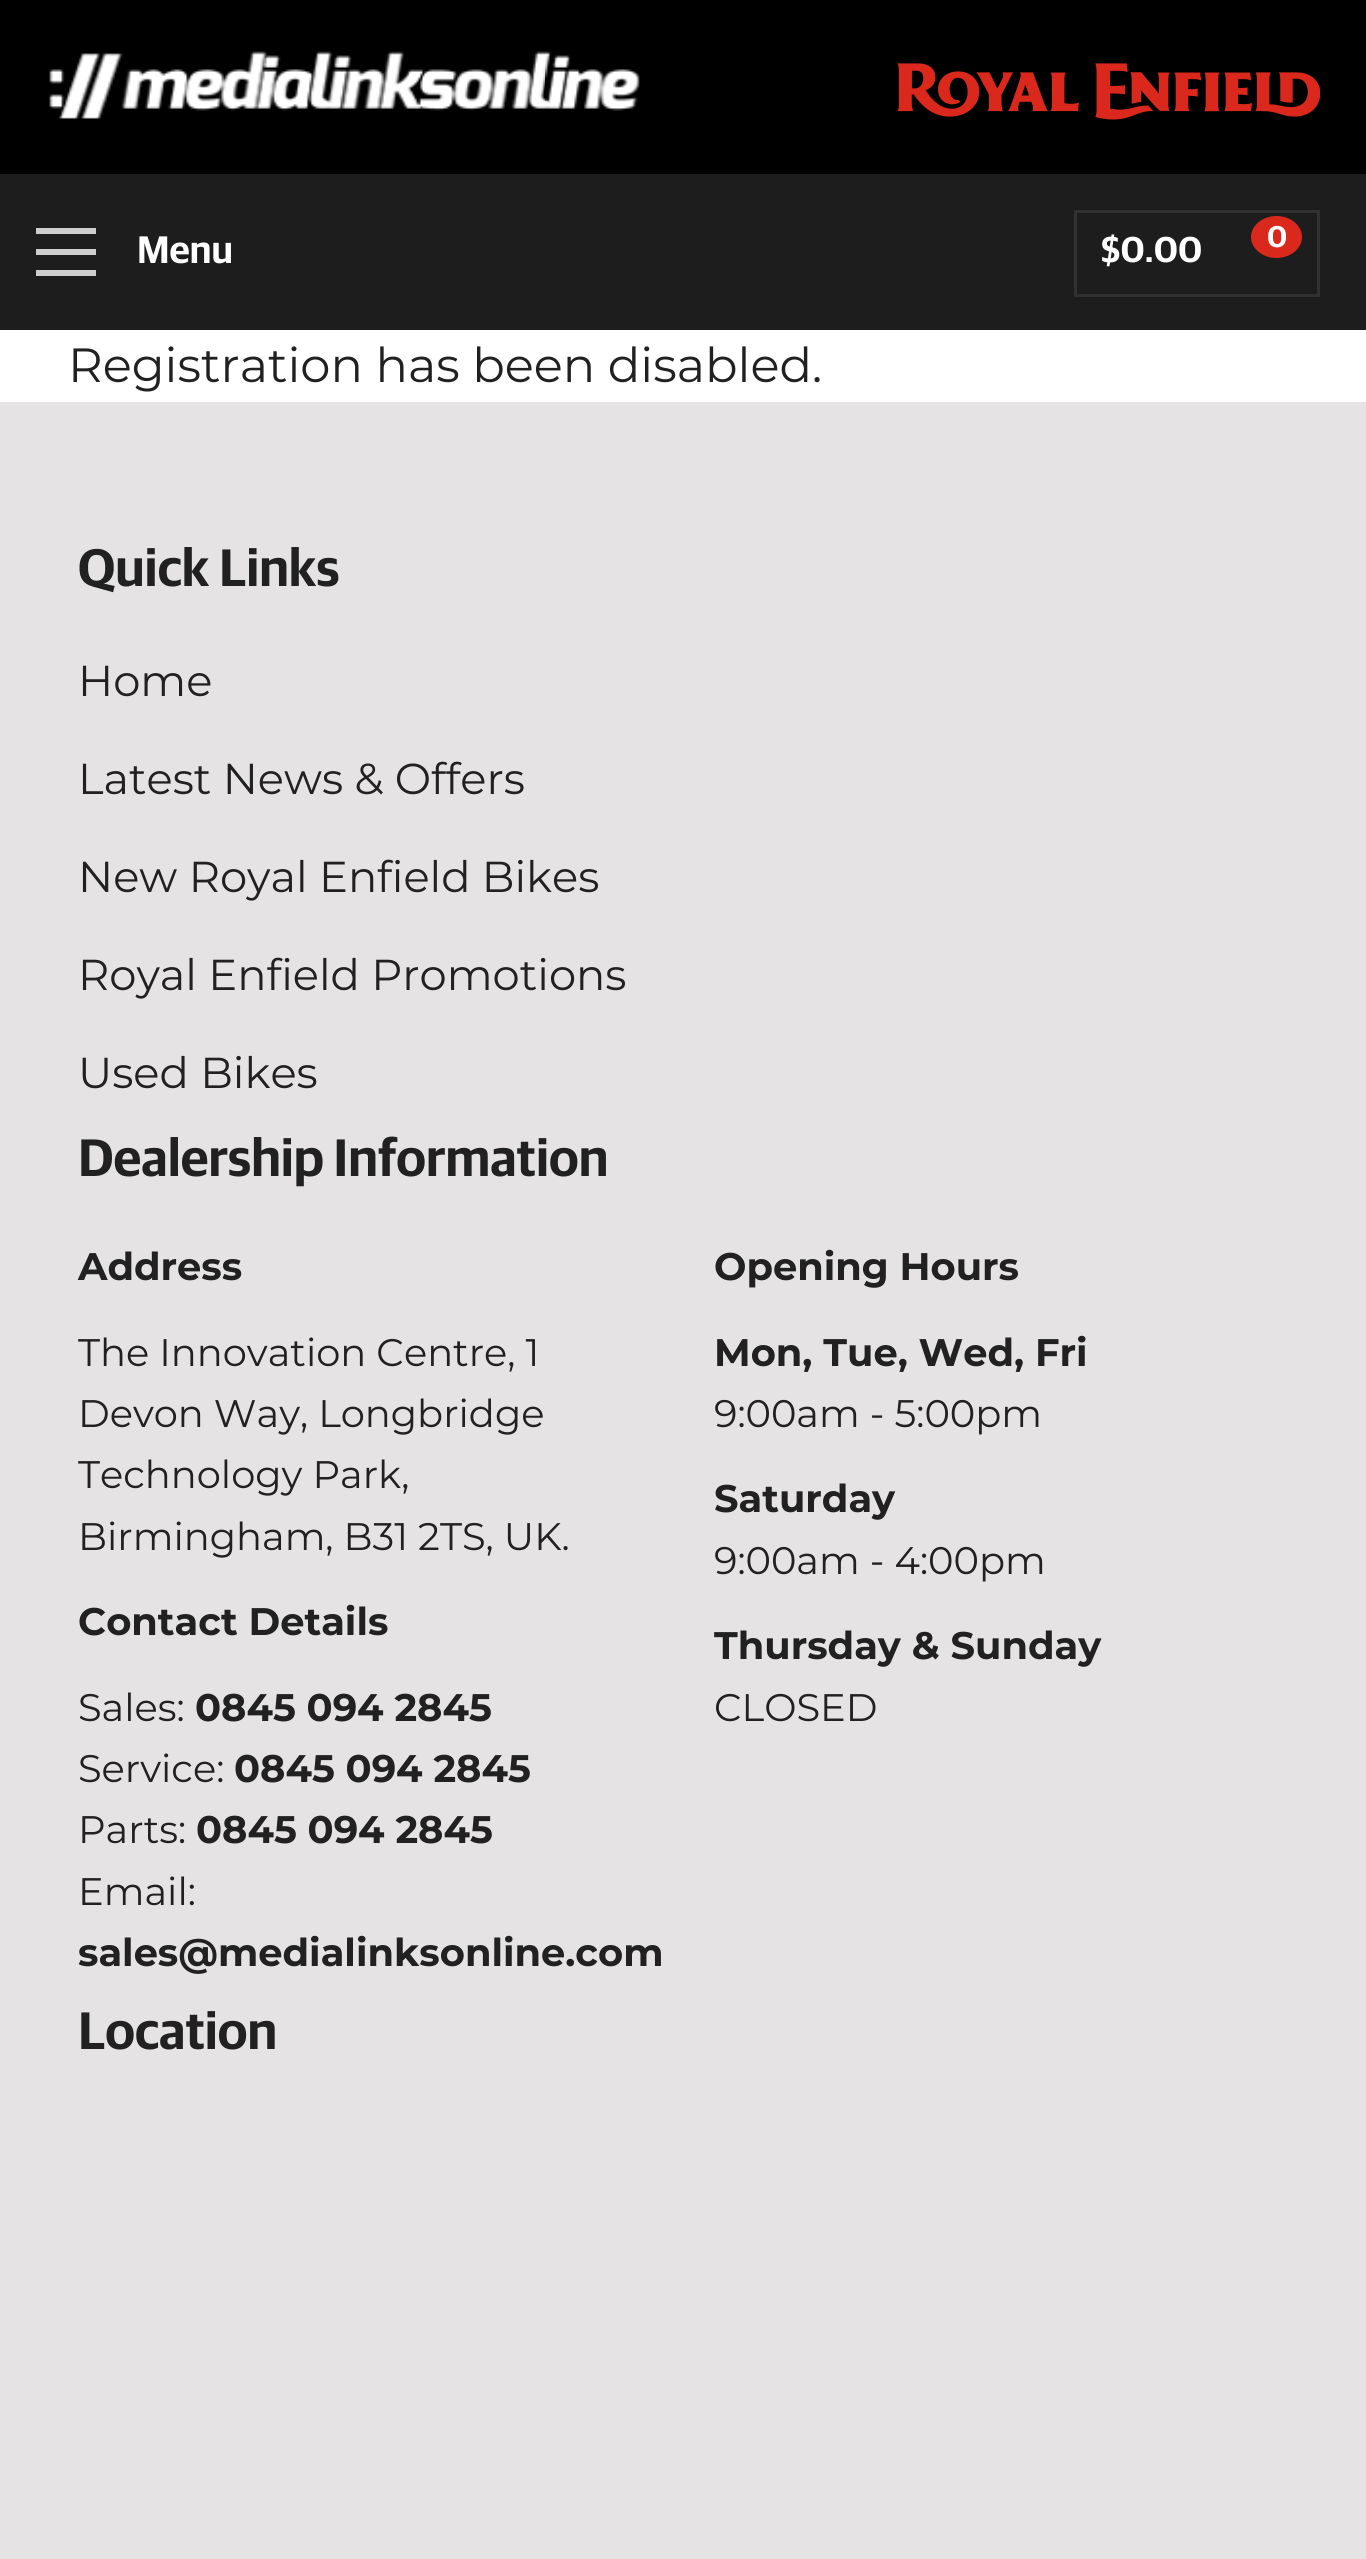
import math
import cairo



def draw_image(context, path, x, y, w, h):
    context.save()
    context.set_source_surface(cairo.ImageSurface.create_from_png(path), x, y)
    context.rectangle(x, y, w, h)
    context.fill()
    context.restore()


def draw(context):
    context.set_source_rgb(1, 1, 1)
    context.paint()
    context.set_source_rgb(0, 0, 0)
    context.rectangle(0, 0, 1366, 174)
    context.fill()
    draw_image(context, "images/1.png", 49, 51, 591, 68)
    draw_image(context, "images/2.png", 897, 63, 423, 57)
    context.set_source_rgb(29 / 255, 29 / 255, 29 / 255)
    context.rectangle(0, 174, 1366, 156)
    context.fill()
    context.set_source_rgb(206 / 255, 206 / 255, 206 / 255)
    context.rectangle(36, 270, 60, 6)
    context.fill()
    context.rectangle(36, 249, 60, 6)
    context.fill()
    context.rectangle(36, 228, 60, 6)
    context.fill()
    context.rectangle(1075.5, 211.5, 243, 84)
    context.set_source_rgb(49 / 255, 49 / 255, 49 / 255)
    context.set_line_width(3)
    context.stroke()
    context.set_source_rgb(218 / 255, 41 / 255, 28 / 255)
    context.new_path()
    context.move_to(1276.5, 216)
    context.curve_to(1290.5, 216, 1302, 225.5, 1302, 237)
    context.curve_to(1302, 248.5, 1290.5, 258, 1276.5, 258)
    context.curve_to(1262.5, 258, 1251, 248.5, 1251, 237)
    context.curve_to(1251, 225.5, 1262.5, 216, 1276.5, 216)
    context.close_path()
    context.fill()
    context.set_source_rgb(229 / 255, 227 / 255, 227 / 255)
    context.rectangle(0, 402, 1366, 2157)
    context.fill()
    context.select_font_face("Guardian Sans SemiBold")
    context.set_font_size(38.4)
    context.set_source_rgb(1, 1, 1)
    context.move_to(137, 263)
    context.show_text("Menu")
    context.set_font_size(36)
    context.move_to(1101, 262)
    context.show_text("$0.00")
    context.set_font_size(30)
    context.move_to(1267, 247)
    context.show_text("0")
    context.select_font_face("Montserrat")
    context.set_font_size(48)
    context.set_source_rgb(33 / 255, 33 / 255, 33 / 255)
    context.move_to(68, 382)
    context.show_text("Registration has been disabled.")
    context.select_font_face("Guardian Sans SemiBold")
    context.set_font_size(52.75)
    context.move_to(78, 586)
    context.show_text("Quick Links")
    context.select_font_face("Montserrat")
    context.set_font_size(43.25)
    context.move_to(78, 696)
    context.show_text("Home")
    context.move_to(78, 794)
    context.show_text("Latest News & Offers")
    context.move_to(78, 892)
    context.show_text("New Royal Enfield Bikes")
    context.move_to(78, 990)
    context.show_text("Royal Enfield Promotions")
    context.move_to(78, 1088)
    context.show_text("Used Bikes")
    context.select_font_face("Guardian Sans SemiBold")
    context.set_font_size(52.75)
    context.move_to(78, 1176)
    context.show_text("Dealership Information")
    context.select_font_face("Montserrat", cairo.FontSlant.NORMAL, cairo.FontWeight.BOLD)
    context.set_font_size(38.4)
    context.move_to(78, 1280)
    context.show_text("Address")
    context.select_font_face("Montserrat")
    context.move_to(78, 1366)
    context.show_text("The Innovation Centre, 1")
    context.move_to(78, 1427)
    context.show_text("Devon Way, Longbridge")
    context.move_to(78, 1488)
    context.show_text("Technology Park,")
    context.move_to(78, 1550)
    context.show_text("Birmingham, B31 2TS, UK.")
    context.select_font_face("Montserrat", cairo.FontSlant.NORMAL, cairo.FontWeight.BOLD)
    context.move_to(78, 1635)
    context.show_text("Contact Details")
    context.select_font_face("Montserrat")
    context.move_to(78, 1721)
    context.show_text("Sales:")
    context.select_font_face("Montserrat", cairo.FontSlant.NORMAL, cairo.FontWeight.BOLD)
    context.move_to(195, 1721)
    context.show_text("0845 094 2845")
    context.select_font_face("Montserrat")
    context.move_to(78, 1782)
    context.show_text("Service:")
    context.select_font_face("Montserrat", cairo.FontSlant.NORMAL, cairo.FontWeight.BOLD)
    context.move_to(234, 1782)
    context.show_text("0845 094 2845")
    context.select_font_face("Montserrat")
    context.move_to(78, 1843)
    context.show_text("Parts:")
    context.select_font_face("Montserrat", cairo.FontSlant.NORMAL, cairo.FontWeight.BOLD)
    context.move_to(196, 1843)
    context.show_text("0845 094 2845")
    context.select_font_face("Montserrat")
    context.move_to(78, 1905)
    context.show_text("Email:")
    context.select_font_face("Montserrat", cairo.FontSlant.NORMAL, cairo.FontWeight.BOLD)
    context.move_to(78, 1966)
    context.show_text("sales@medialinksonline.com")
    context.move_to(714, 1280)
    context.show_text("Opening Hours")
    context.move_to(714, 1366)
    context.show_text("Mon, Tue, Wed, Fri")
    context.select_font_face("Montserrat")
    context.move_to(714, 1427)
    context.show_text("9:00am - 5:00pm")
    context.select_font_face("Montserrat", cairo.FontSlant.NORMAL, cairo.FontWeight.BOLD)
    context.move_to(714, 1512)
    context.show_text("Saturday")
    context.select_font_face("Montserrat")
    context.move_to(714, 1574)
    context.show_text("9:00am - 4:00pm")
    context.select_font_face("Montserrat", cairo.FontSlant.NORMAL, cairo.FontWeight.BOLD)
    context.move_to(714, 1659)
    context.show_text("Thursday & Sunday")
    context.select_font_face("Montserrat")
    context.move_to(714, 1721)
    context.show_text("CLOSED")
    context.select_font_face("Guardian Sans SemiBold")
    context.set_font_size(52.75)
    context.move_to(78, 2049)
    context.show_text("Location")


surface = cairo.ImageSurface(cairo.Format.RGB24, 1366, 2559)
context = cairo.Context(surface)
options = cairo.FontOptions()
options.set_hint_metrics(cairo.HintMetrics.OFF)
options.set_hint_style(cairo.HintStyle.NONE)
context.set_font_options(options)
context.set_miter_limit(4)
draw(context)
surface.write_to_png("out.png")
